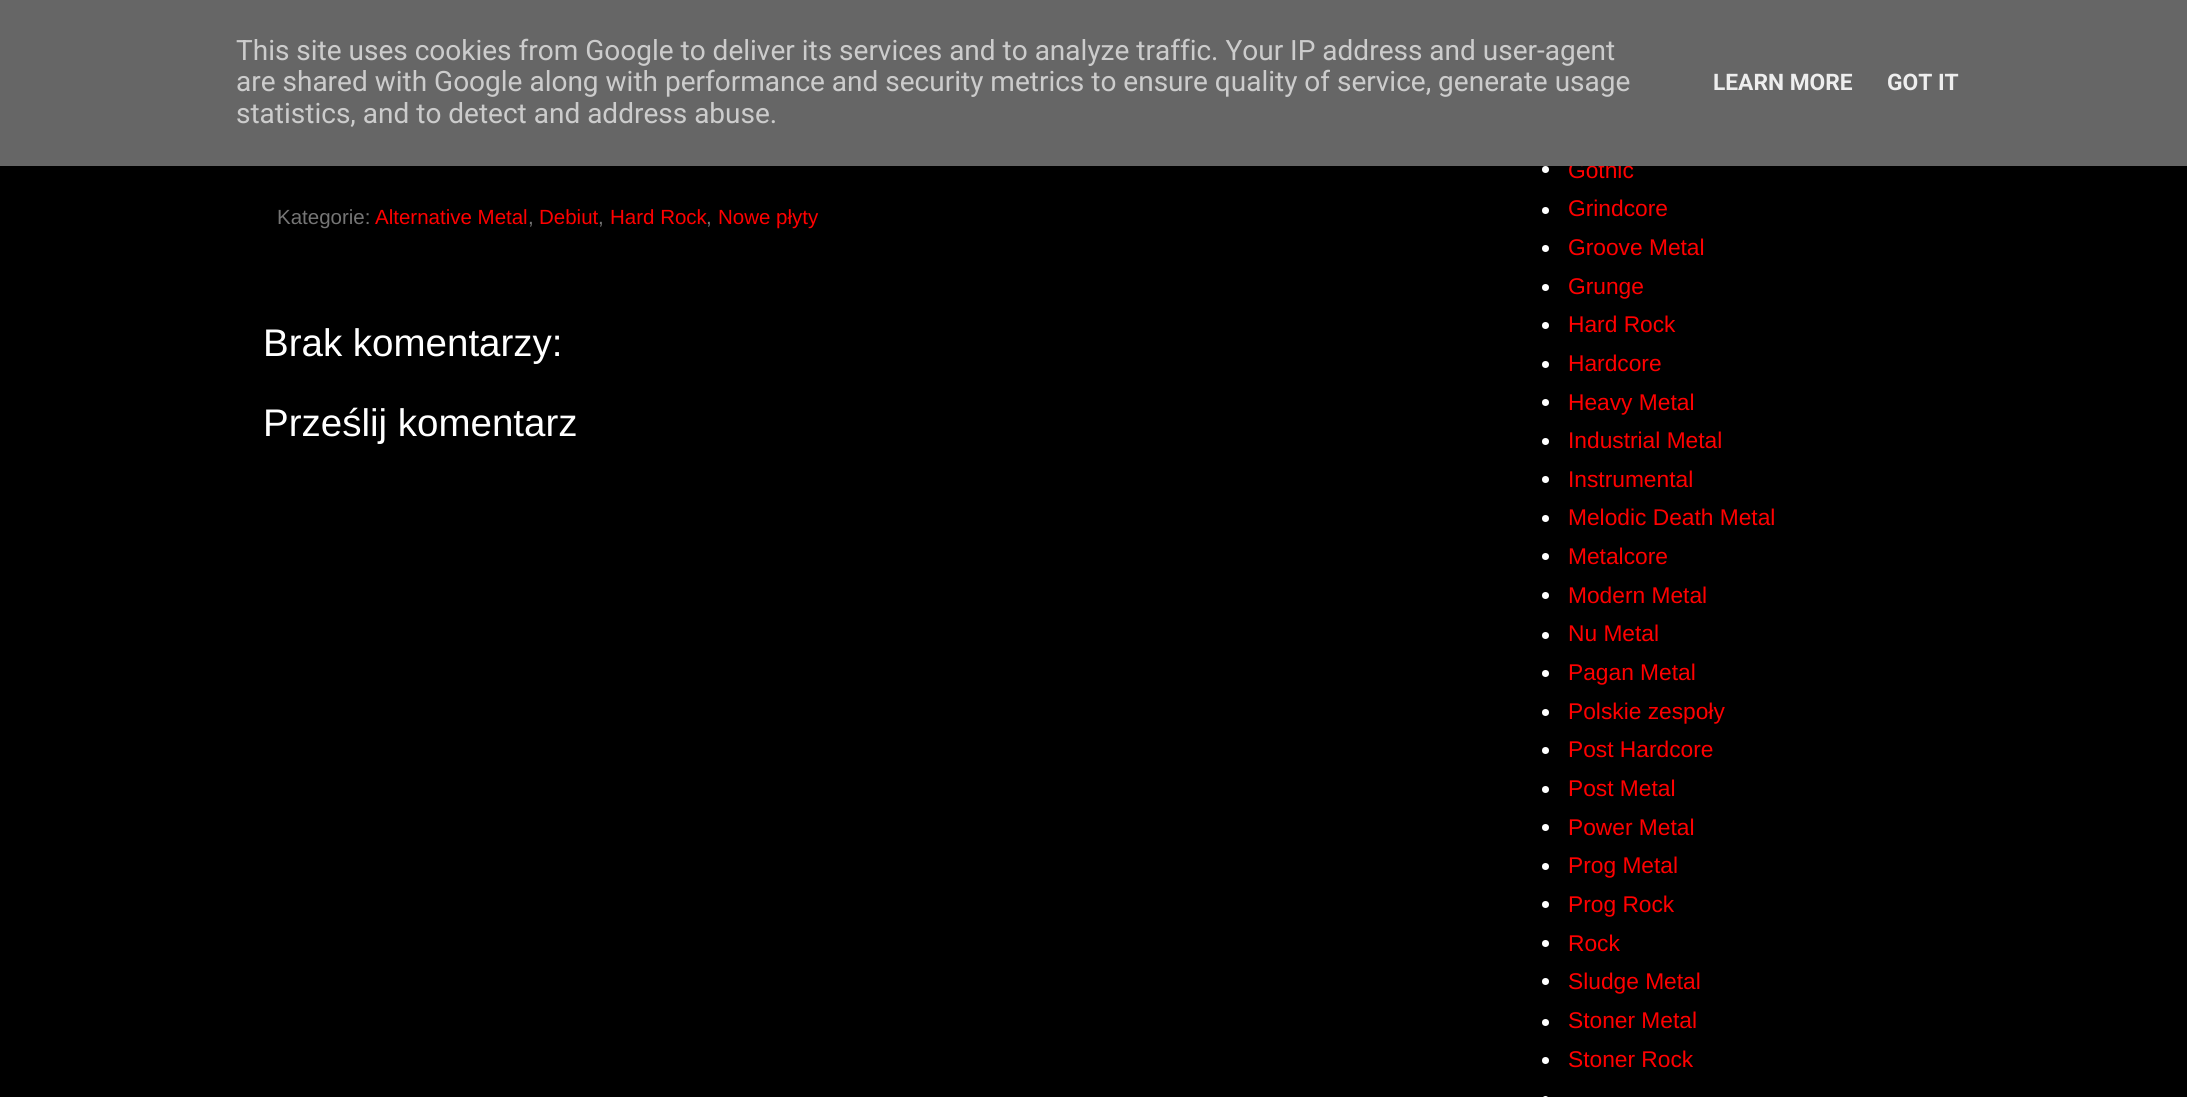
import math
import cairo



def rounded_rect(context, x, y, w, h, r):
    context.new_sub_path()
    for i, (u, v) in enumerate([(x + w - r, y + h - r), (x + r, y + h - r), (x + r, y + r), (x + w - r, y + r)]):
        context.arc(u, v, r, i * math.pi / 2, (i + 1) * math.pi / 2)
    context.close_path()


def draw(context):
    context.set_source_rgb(0, 0, 0)
    context.paint()
    context.set_source_rgb(1, 1, 1)
    context.arc(1545.5, 169.5, 3.5, 0, 2 * math.pi)
    context.fill()
    context.arc(1545.5, 210.5, 3.5, 0, 2 * math.pi)
    context.fill()
    context.arc(1545.5, 248.5, 3.5, 0, 2 * math.pi)
    context.fill()
    context.arc(1545.5, 287.5, 3.5, 0, 2 * math.pi)
    context.fill()
    context.arc(1545.5, 325.5, 3.5, 0, 2 * math.pi)
    context.fill()
    context.arc(1545.5, 364.5, 3.5, 0, 2 * math.pi)
    context.fill()
    context.arc(1545.5, 402.5, 3.5, 0, 2 * math.pi)
    context.fill()
    context.arc(1545.5, 441.5, 3.5, 0, 2 * math.pi)
    context.fill()
    context.arc(1545.5, 479.5, 3.5, 0, 2 * math.pi)
    context.fill()
    context.arc(1545.5, 518.5, 3.5, 0, 2 * math.pi)
    context.fill()
    context.arc(1545.5, 556.5, 3.5, 0, 2 * math.pi)
    context.fill()
    context.arc(1545.5, 595.5, 3.5, 0, 2 * math.pi)
    context.fill()
    context.arc(1545.5, 635.5, 3.5, 0, 2 * math.pi)
    context.fill()
    context.arc(1545.5, 673.5, 3.5, 0, 2 * math.pi)
    context.fill()
    context.arc(1545.5, 712.5, 3.5, 0, 2 * math.pi)
    context.fill()
    context.arc(1545.5, 750.5, 3.5, 0, 2 * math.pi)
    context.fill()
    context.arc(1545.5, 789.5, 3.5, 0, 2 * math.pi)
    context.fill()
    context.arc(1545.5, 827.5, 3.5, 0, 2 * math.pi)
    context.fill()
    context.arc(1545.5, 866.5, 3.5, 0, 2 * math.pi)
    context.fill()
    context.arc(1545.5, 904.5, 3.5, 0, 2 * math.pi)
    context.fill()
    context.arc(1545.5, 943.5, 3.5, 0, 2 * math.pi)
    context.fill()
    context.arc(1545.5, 981.5, 3.5, 0, 2 * math.pi)
    context.fill()
    context.arc(1545.5, 1022.5, 3.5, 0, 2 * math.pi)
    context.fill()
    context.arc(1545.5, 1060.5, 3.5, 0, 2 * math.pi)
    context.fill()
    rounded_rect(context, 1542, 1096, 7, 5, 3.5)
    context.fill()
    context.select_font_face("Liberation Sans")
    context.set_font_size(20.5)
    context.set_source_rgb(117 / 255, 117 / 255, 117 / 255)
    context.move_to(277, 224)
    context.show_text("Kategorie:")
    context.set_source_rgb(1, 0, 0)
    context.move_to(375, 224)
    context.show_text("Alternative Metal")
    context.set_source_rgb(117 / 255, 117 / 255, 117 / 255)
    context.move_to(528, 224)
    context.show_text(",")
    context.set_source_rgb(1, 0, 0)
    context.move_to(539, 224)
    context.show_text("Debiut")
    context.set_source_rgb(117 / 255, 117 / 255, 117 / 255)
    context.move_to(598, 224)
    context.show_text(",")
    context.set_source_rgb(1, 0, 0)
    context.move_to(610, 224)
    context.show_text("Hard Rock")
    context.set_source_rgb(117 / 255, 117 / 255, 117 / 255)
    context.move_to(706, 224)
    context.show_text(",")
    context.set_source_rgb(1, 0, 0)
    context.move_to(718, 224)
    context.show_text("Nowe płyty")
    context.set_font_size(38.5)
    context.set_source_rgb(1, 1, 1)
    context.move_to(263, 356)
    context.show_text("Brak komentarzy:")
    context.move_to(263, 436)
    context.show_text("Prześlij komentarz")
    context.set_font_size(22.75)
    context.set_source_rgb(1, 0, 0)
    context.move_to(1568, 178)
    context.show_text("Gothic")
    context.set_source_rgb(102 / 255, 102 / 255, 102 / 255)
    context.rectangle(0, 0, 2187, 166)
    context.fill()
    context.select_font_face("Roboto", cairo.FontSlant.NORMAL, cairo.FontWeight.BOLD)
    context.set_source_rgb(238 / 255, 238 / 255, 238 / 255)
    context.move_to(1887, 90)
    context.show_text("GOT IT")
    context.move_to(1713, 90)
    context.show_text("LEARN MORE")
    context.select_font_face("Roboto")
    context.set_font_size(28)
    context.set_source_rgb(204 / 255, 204 / 255, 204 / 255)
    context.move_to(236, 123)
    context.show_text("statistics, and to detect and address abuse.")
    context.move_to(236, 91)
    context.show_text("are shared with Google along with performance and security metrics to ensure quality of service, generate usage")
    context.move_to(236, 60)
    context.show_text("This site uses cookies from Google to deliver its services and to analyze traffic. Your IP address and user-agent")
    context.select_font_face("Liberation Sans")
    context.set_font_size(22.75)
    context.set_source_rgb(1, 0, 0)
    context.move_to(1568, 216)
    context.show_text("Grindcore")
    context.move_to(1568, 255)
    context.show_text("Groove Metal")
    context.move_to(1568, 294)
    context.show_text("Grunge")
    context.move_to(1568, 332)
    context.show_text("Hard Rock")
    context.move_to(1568, 371)
    context.show_text("Hardcore")
    context.move_to(1568, 410)
    context.show_text("Heavy Metal")
    context.move_to(1568, 448)
    context.show_text("Industrial Metal")
    context.move_to(1568, 487)
    context.show_text("Instrumental")
    context.move_to(1568, 525)
    context.show_text("Melodic Death Metal")
    context.move_to(1568, 564)
    context.show_text("Metalcore")
    context.move_to(1568, 603)
    context.show_text("Modern Metal")
    context.move_to(1568, 641)
    context.show_text("Nu Metal")
    context.move_to(1568, 680)
    context.show_text("Pagan Metal")
    context.move_to(1568, 719)
    context.show_text("Polskie zespoły")
    context.move_to(1568, 757)
    context.show_text("Post Hardcore")
    context.move_to(1568, 796)
    context.show_text("Post Metal")
    context.move_to(1568, 835)
    context.show_text("Power Metal")
    context.move_to(1568, 873)
    context.show_text("Prog Metal")
    context.move_to(1568, 912)
    context.show_text("Prog Rock")
    context.move_to(1568, 951)
    context.show_text("Rock")
    context.move_to(1568, 989)
    context.show_text("Sludge Metal")
    context.move_to(1568, 1028)
    context.show_text("Stoner Metal")
    context.move_to(1568, 1067)
    context.show_text("Stoner Rock")


surface = cairo.ImageSurface(cairo.Format.RGB24, 2187, 1097)
context = cairo.Context(surface)
options = cairo.FontOptions()
options.set_hint_metrics(cairo.HintMetrics.OFF)
options.set_hint_style(cairo.HintStyle.NONE)
context.set_font_options(options)
context.set_miter_limit(4)
draw(context)
surface.write_to_png("out.png")
